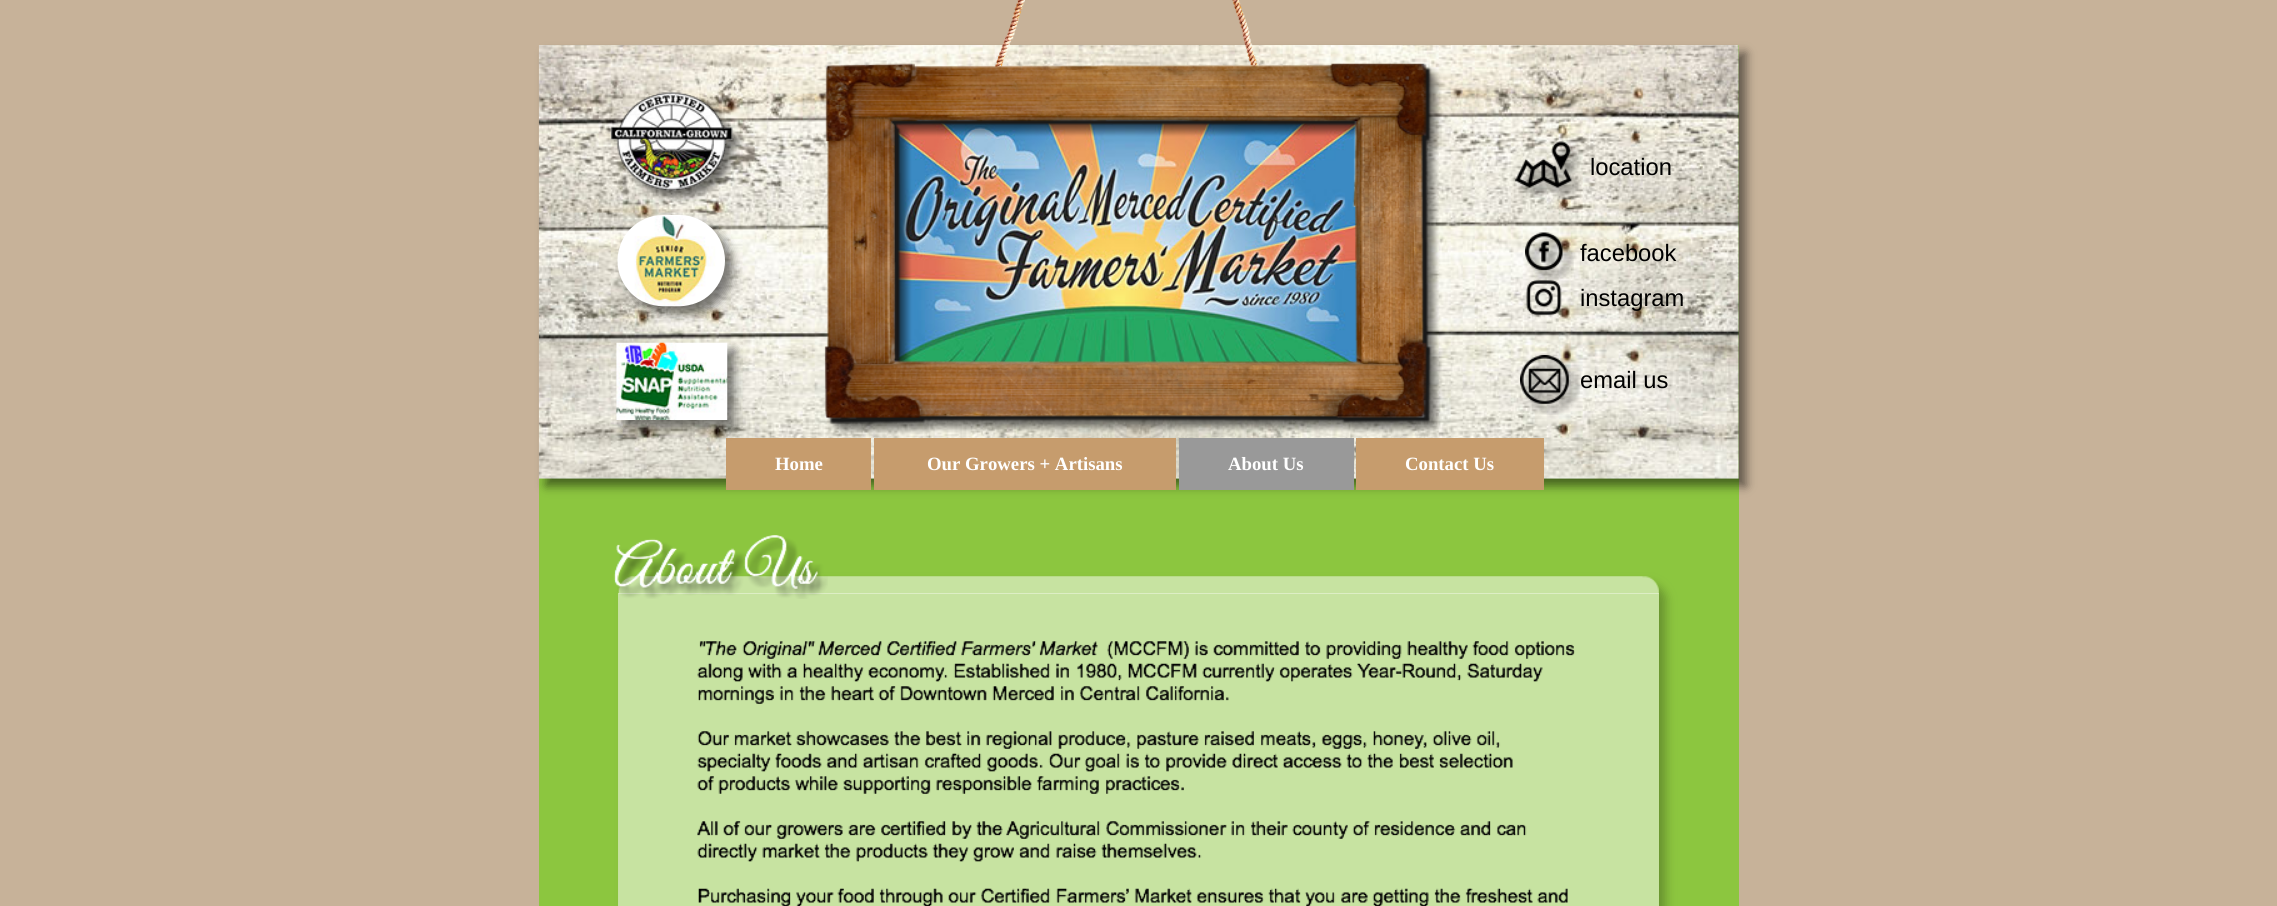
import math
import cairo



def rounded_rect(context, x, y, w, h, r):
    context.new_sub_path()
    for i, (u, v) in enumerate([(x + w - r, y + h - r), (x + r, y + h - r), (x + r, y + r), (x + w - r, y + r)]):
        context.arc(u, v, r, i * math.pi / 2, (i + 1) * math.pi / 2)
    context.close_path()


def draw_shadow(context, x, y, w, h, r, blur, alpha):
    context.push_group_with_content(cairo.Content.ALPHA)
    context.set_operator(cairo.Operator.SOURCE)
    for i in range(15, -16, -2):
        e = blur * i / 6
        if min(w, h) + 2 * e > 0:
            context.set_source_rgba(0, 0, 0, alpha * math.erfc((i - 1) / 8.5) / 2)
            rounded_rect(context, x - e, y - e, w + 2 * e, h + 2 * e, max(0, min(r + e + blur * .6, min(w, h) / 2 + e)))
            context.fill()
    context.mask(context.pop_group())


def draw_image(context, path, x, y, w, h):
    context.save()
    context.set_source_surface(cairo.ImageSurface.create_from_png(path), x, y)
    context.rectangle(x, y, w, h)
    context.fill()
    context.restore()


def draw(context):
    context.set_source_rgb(199 / 255, 178 / 255, 153 / 255)
    context.paint()
    context.set_source_rgb(140 / 255, 198 / 255, 63 / 255)
    context.rectangle(539, 45, 1200, 861)
    context.fill()
    context.set_source_rgb(0, 0, 0)
    draw_shadow(context, 546, 53, 1200, 433, 0, 5, 0.5)
    draw_image(context, "images/3.png", 538, 45, 1201, 434)
    draw_image(context, "images/1.png", 994, 0, 31, 68)
    draw_image(context, "images/2.png", 1232, 0, 27, 67)
    draw_image(context, "images/4.png", 610, 91, 134, 111)
    draw_image(context, "images/6.png", 895, 123, 463, 240)
    draw_image(context, "images/5.png", 824, 63, 618, 372)
    draw_image(context, "images/7.png", 1515, 141, 67, 57)
    draw_shadow(context, 625, 223, 108, 91, 45.5, 5, 0.5)
    draw_image(context, "images/8.png", 617, 215, 108, 92)
    draw_image(context, "images/9.png", 1525, 232, 49, 49)
    draw_image(context, "images/10.png", 1526, 279, 36, 37)
    context.set_source_rgb(198 / 255, 156 / 255, 109 / 255)
    context.rectangle(726, 438, 145, 52)
    context.fill()
    context.set_source_rgb(0, 0, 0)
    draw_shadow(context, 624, 350, 111, 78, 0, 5, 0.5)
    draw_image(context, "images/11.png", 616, 342, 112, 78)
    draw_image(context, "images/12.png", 1520, 355, 60, 60)
    context.set_source_rgb(198 / 255, 156 / 255, 109 / 255)
    context.rectangle(874, 438, 302, 52)
    context.fill()
    context.set_source_rgb(153 / 255, 153 / 255, 153 / 255)
    context.rectangle(1179, 438, 175, 52)
    context.fill()
    context.set_source_rgb(198 / 255, 156 / 255, 109 / 255)
    context.rectangle(1356, 438, 188, 52)
    context.fill()
    context.save()
    context.set_fill_rule(cairo.FillRule.EVEN_ODD)
    context.new_path()
    context.move_to(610, 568)
    context.line_to(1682, 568)
    context.line_to(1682, 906)
    context.line_to(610, 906)
    context.close_path()
    context.move_to(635, 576)
    context.line_to(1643, 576)
    context.curve_to(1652, 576, 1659, 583, 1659, 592)
    context.line_to(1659, 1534)
    context.curve_to(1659, 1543, 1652, 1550, 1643, 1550)
    context.line_to(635, 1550)
    context.curve_to(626, 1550, 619, 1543, 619, 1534)
    context.line_to(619, 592)
    context.curve_to(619, 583, 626, 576, 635, 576)
    context.close_path()
    context.clip()
    context.set_source_rgb(69 / 255, 97 / 255, 31 / 255)
    draw_shadow(context, 626, 584, 1040, 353, 16, 5, 0.5)
    context.restore()
    context.set_source_rgba(1, 1, 1, 0.51)
    context.rectangle(618, 593, 1041, 313)
    context.fill()
    draw_image(context, "images/14.png", 618, 576, 1041, 18)
    draw_image(context, "images/13.png", 613, 535, 215, 64)
    draw_image(context, "images/15.png", 697, 641, 878, 265)
    context.select_font_face("Liberation Sans")
    context.set_font_size(23.75)
    context.set_source_rgb(0, 0, 0)
    context.move_to(1590, 175)
    context.show_text("location")
    context.move_to(1580, 261)
    context.show_text("facebook")
    context.move_to(1580, 306)
    context.show_text("instagram")
    context.move_to(1580, 388)
    context.show_text("email us")
    context.select_font_face("Liberation Serif", cairo.FontSlant.NORMAL, cairo.FontWeight.BOLD)
    context.set_font_size(18.75)
    context.set_source_rgb(1, 1, 1)
    context.move_to(775, 470)
    context.show_text("Home")
    context.move_to(927, 470)
    context.show_text("Our Growers + Artisans")
    context.move_to(1228, 470)
    context.show_text("About Us")
    context.move_to(1405, 470)
    context.show_text("Contact Us")


surface = cairo.ImageSurface(cairo.Format.RGB24, 2277, 906)
context = cairo.Context(surface)
options = cairo.FontOptions()
options.set_hint_metrics(cairo.HintMetrics.OFF)
options.set_hint_style(cairo.HintStyle.NONE)
context.set_font_options(options)
context.set_miter_limit(4)
draw(context)
surface.write_to_png("out.png")
